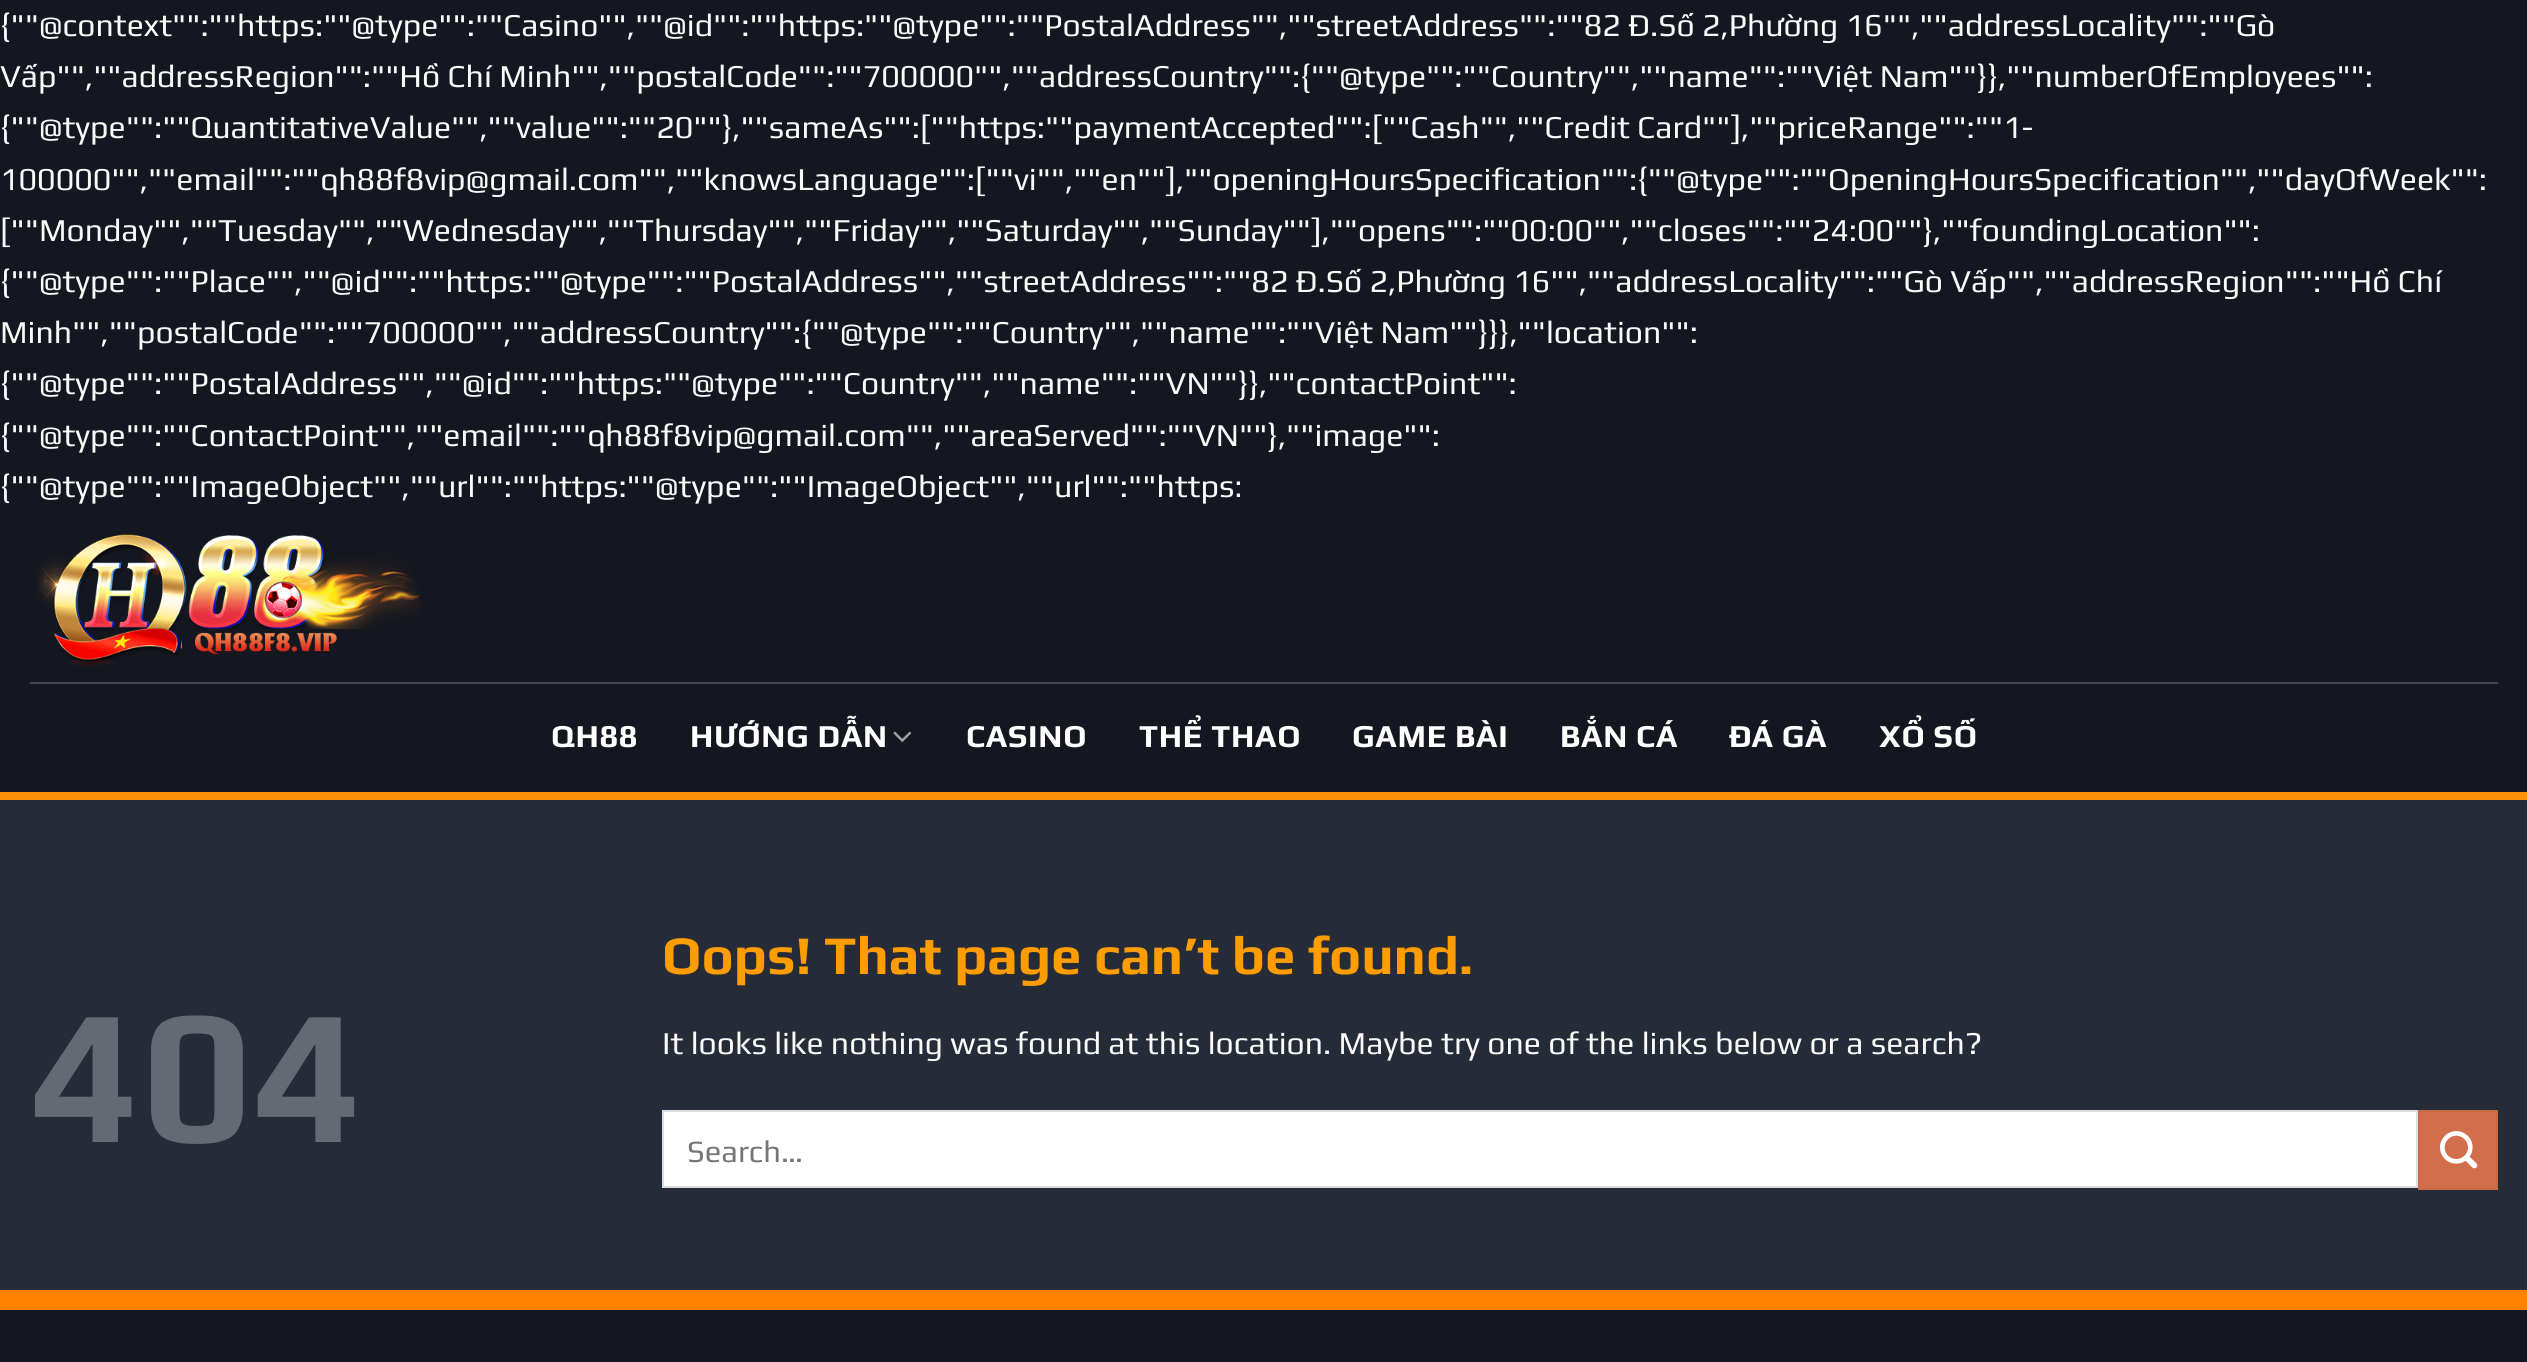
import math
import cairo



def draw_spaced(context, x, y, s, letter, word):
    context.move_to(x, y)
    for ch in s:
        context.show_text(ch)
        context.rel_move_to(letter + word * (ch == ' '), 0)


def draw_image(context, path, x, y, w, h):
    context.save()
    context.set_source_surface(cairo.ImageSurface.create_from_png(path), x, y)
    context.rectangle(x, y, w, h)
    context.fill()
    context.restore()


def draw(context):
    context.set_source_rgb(20 / 255, 23 / 255, 31 / 255)
    context.paint()
    context.set_source_rgb(38 / 255, 43 / 255, 56 / 255)
    context.rectangle(0, 800, 2527, 490)
    context.fill()
    context.set_source_rgb(250 / 255, 145 / 255, 9 / 255)
    context.rectangle(0, 792, 2527, 8)
    context.fill()
    draw_image(context, "images/1.png", 36, 534, 385, 133)
    context.set_source_rgb(68 / 255, 69 / 255, 86 / 255)
    context.rectangle(30, 682, 2468, 2)
    context.fill()
    draw_image(context, "images/2.png", 893, 731, 19, 11)
    context.set_source_rgb(1, 1, 1)
    context.rectangle(663, 1111, 1754, 76)
    context.fill_preserve()
    context.set_source_rgb(221 / 255, 221 / 255, 221 / 255)
    context.stroke()
    context.set_source_rgb(210 / 255, 110 / 255, 75 / 255)
    context.rectangle(2419, 1111, 78, 78)
    context.fill_preserve()
    context.set_source_rgb(200 / 255, 105 / 255, 71 / 255)
    context.stroke()
    draw_image(context, "images/3.png", 2440, 1131, 38, 38)
    context.set_source_rgb(1, 131 / 255, 0)
    context.rectangle(0, 1290, 2527, 20)
    context.fill()
    context.select_font_face("Play")
    context.set_font_size(32)
    context.set_source_rgb(249 / 255, 249 / 255, 249 / 255)
    context.move_to(0, 36)
    context.show_text("{\"\"@context\"\":\"\"https:\"\"@type\"\":\"\"Casino\"\",\"\"@id\"\":\"\"https:\"\"@type\"\":\"\"PostalAddress\"\",\"\"streetAddress\"\":\"\"82 Đ.Số 2,Phường 16\"\",\"\"addressLocality\"\":\"\"Gò")
    context.move_to(0, 87)
    context.show_text("Vấp\"\",\"\"addressRegion\"\":\"\"Hồ Chí Minh\"\",\"\"postalCode\"\":\"\"700000\"\",\"\"addressCountry\"\":{\"\"@type\"\":\"\"Country\"\",\"\"name\"\":\"\"Việt Nam\"\"}},\"\"numberOfEmployees\"\":")
    context.move_to(0, 138)
    context.show_text("{\"\"@type\"\":\"\"QuantitativeValue\"\",\"\"value\"\":\"\"20\"\"},\"\"sameAs\"\":[\"\"https:\"\"paymentAccepted\"\":[\"\"Cash\"\",\"\"Credit Card\"\"],\"\"priceRange\"\":\"\"1-")
    context.move_to(0, 190)
    context.show_text("100000\"\",\"\"email\"\":\"\"qh88f8vip@gmail.com\"\",\"\"knowsLanguage\"\":[\"\"vi\"\",\"\"en\"\"],\"\"openingHoursSpecification\"\":{\"\"@type\"\":\"\"OpeningHoursSpecification\"\",\"\"dayOfWeek\"\":")
    context.move_to(0, 241)
    context.show_text("[\"\"Monday\"\",\"\"Tuesday\"\",\"\"Wednesday\"\",\"\"Thursday\"\",\"\"Friday\"\",\"\"Saturday\"\",\"\"Sunday\"\"],\"\"opens\"\":\"\"00:00\"\",\"\"closes\"\":\"\"24:00\"\"},\"\"foundingLocation\"\":")
    context.move_to(0, 292)
    context.show_text("{\"\"@type\"\":\"\"Place\"\",\"\"@id\"\":\"\"https:\"\"@type\"\":\"\"PostalAddress\"\",\"\"streetAddress\"\":\"\"82 Đ.Số 2,Phường 16\"\",\"\"addressLocality\"\":\"\"Gò Vấp\"\",\"\"addressRegion\"\":\"\"Hồ Chí")
    context.move_to(0, 343)
    context.show_text("Minh\"\",\"\"postalCode\"\":\"\"700000\"\",\"\"addressCountry\"\":{\"\"@type\"\":\"\"Country\"\",\"\"name\"\":\"\"Việt Nam\"\"}}},\"\"location\"\":")
    context.move_to(0, 394)
    context.show_text("{\"\"@type\"\":\"\"PostalAddress\"\",\"\"@id\"\":\"\"https:\"\"@type\"\":\"\"Country\"\",\"\"name\"\":\"\"VN\"\"}},\"\"contactPoint\"\":")
    context.move_to(0, 446)
    context.show_text("{\"\"@type\"\":\"\"ContactPoint\"\",\"\"email\"\":\"\"qh88f8vip@gmail.com\"\",\"\"areaServed\"\":\"\"VN\"\"},\"\"image\"\":")
    context.move_to(0, 497)
    context.show_text("{\"\"@type\"\":\"\"ImageObject\"\",\"\"url\"\":\"\"https:\"\"@type\"\":\"\"ImageObject\"\",\"\"url\"\":\"\"https:")
    context.select_font_face("Play", cairo.FontSlant.NORMAL, cairo.FontWeight.BOLD)
    context.set_source_rgb(1, 1, 1)
    draw_spaced(context, 551, 747, "QH88", 0.75, 0)
    draw_spaced(context, 690, 747, "HƯỚNG DẪN", 0.75, 0)
    draw_spaced(context, 966, 747, "CASINO", 0.75, 0)
    draw_spaced(context, 1139, 747, "THỂ THAO", 0.75, 0)
    draw_spaced(context, 1352, 747, "GAME BÀI", 0.75, 0)
    draw_spaced(context, 1560, 747, "BẮN CÁ", 0.75, 0)
    draw_spaced(context, 1729, 747, "ĐÁ GÀ", 0.75, 0)
    draw_spaced(context, 1879, 747, "XỔ SỐ", 0.75, 0)
    context.set_font_size(192)
    context.set_source_rgb(101 / 255, 105 / 255, 114 / 255)
    context.move_to(30, 1142)
    context.show_text("404")
    context.set_font_size(54.4)
    context.set_source_rgb(1, 157 / 255, 0)
    context.move_to(662, 974)
    context.show_text("Oops! That page can’t be found.")
    context.select_font_face("Play")
    context.set_font_size(32)
    context.set_source_rgb(249 / 255, 249 / 255, 249 / 255)
    context.move_to(662, 1054)
    context.show_text("It looks like nothing was found at this location. Maybe try one of the links below or a search?")
    context.set_font_size(31)
    context.set_source_rgb(117 / 255, 117 / 255, 117 / 255)
    context.move_to(687, 1162)
    context.show_text("Search…")


surface = cairo.ImageSurface(cairo.Format.RGB24, 2527, 1362)
context = cairo.Context(surface)
options = cairo.FontOptions()
options.set_hint_metrics(cairo.HintMetrics.OFF)
options.set_hint_style(cairo.HintStyle.NONE)
context.set_font_options(options)
context.set_miter_limit(4)
draw(context)
surface.write_to_png("out.png")
